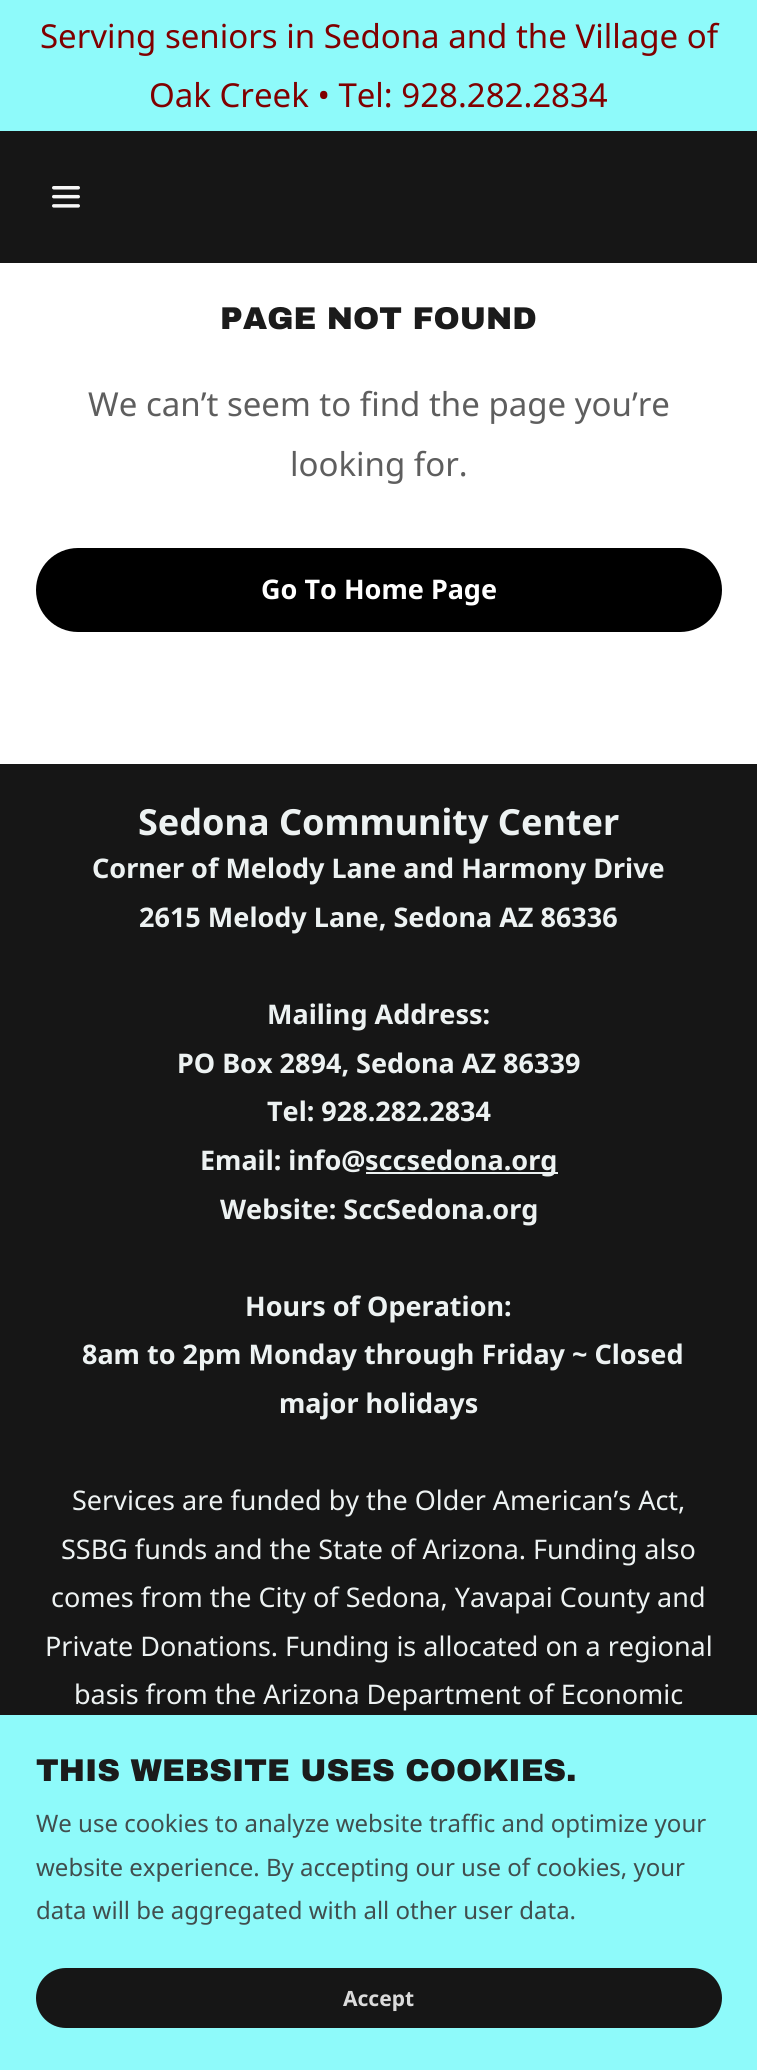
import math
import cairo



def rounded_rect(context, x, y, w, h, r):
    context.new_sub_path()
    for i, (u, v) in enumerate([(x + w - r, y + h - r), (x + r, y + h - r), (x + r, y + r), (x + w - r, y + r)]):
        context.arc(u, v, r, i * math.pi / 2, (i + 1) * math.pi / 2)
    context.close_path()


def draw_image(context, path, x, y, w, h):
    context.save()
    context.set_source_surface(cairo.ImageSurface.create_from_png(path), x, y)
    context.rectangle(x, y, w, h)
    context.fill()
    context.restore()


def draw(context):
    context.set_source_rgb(22 / 255, 22 / 255, 22 / 255)
    context.paint()
    context.set_source_rgb(142 / 255, 250 / 255, 250 / 255)
    context.rectangle(0, 0, 757, 131)
    context.fill()
    draw_image(context, "images/1.png", 52, 186, 28, 22)
    context.set_source_rgb(1, 1, 1)
    context.rectangle(0, 263, 757, 501)
    context.fill()
    context.set_source_rgb(0, 0, 0)
    rounded_rect(context, 36, 548, 686, 84, 42)
    context.fill()
    context.set_source_rgb(237 / 255, 242 / 255, 242 / 255)
    context.rectangle(366, 1172, 192, 2)
    context.fill()
    context.set_source_rgb(142 / 255, 250 / 255, 250 / 255)
    context.rectangle(0, 1715, 757, 355)
    context.fill()
    context.set_source_rgb(22 / 255, 22 / 255, 22 / 255)
    rounded_rect(context, 36, 1968, 686, 60, 30)
    context.fill()
    context.select_font_face("Noto Sans")
    context.set_font_size(33)
    context.set_source_rgb(128 / 255, 0, 0)
    context.move_to(40, 48)
    context.show_text("Serving seniors in Sedona and the Village of")
    context.move_to(149, 107)
    context.show_text("Oak Creek • Tel: 928.282.2834")
    context.select_font_face("Archivo Black Black")
    context.set_font_size(31.5)
    context.set_source_rgb(27 / 255, 27 / 255, 27 / 255)
    context.move_to(220, 329)
    context.show_text("PAGE NOT FOUND")
    context.select_font_face("Noto Sans")
    context.set_font_size(33)
    context.set_source_rgb(94 / 255, 94 / 255, 94 / 255)
    context.move_to(88, 416)
    context.show_text("We can’t seem to find the page you’re")
    context.move_to(290, 476)
    context.show_text("looking for.")
    context.select_font_face("Noto Sans", cairo.FontSlant.NORMAL, cairo.FontWeight.BOLD)
    context.set_font_size(27)
    context.set_source_rgb(1, 1, 1)
    context.move_to(261, 599)
    context.show_text("Go To Home Page")
    context.set_font_size(36)
    context.set_source_rgb(237 / 255, 242 / 255, 242 / 255)
    context.move_to(138, 835)
    context.show_text("Sedona Community Center")
    context.set_font_size(27)
    context.move_to(92, 878)
    context.show_text("Corner of Melody Lane and Harmony Drive")
    context.move_to(139, 927)
    context.show_text("2615 Melody Lane, Sedona AZ 86336")
    context.move_to(267, 1024)
    context.show_text("Mailing Address:")
    context.move_to(177, 1073)
    context.show_text("PO Box 2894, Sedona AZ 86339")
    context.move_to(267, 1121)
    context.show_text("Tel: 928.282.2834")
    context.move_to(200, 1170)
    context.show_text("Email: info@")
    context.move_to(365, 1170)
    context.show_text("sccsedona.org")
    context.move_to(220, 1219)
    context.show_text("Website: SccSedona.org")
    context.move_to(245, 1316)
    context.show_text("Hours of Operation:")
    context.move_to(82, 1364)
    context.show_text("8am to 2pm Monday through Friday ~ Closed")
    context.move_to(279, 1413)
    context.show_text("major holidays")
    context.select_font_face("Noto Sans")
    context.move_to(72, 1510)
    context.show_text("Services are funded by the Older American’s Act,")
    context.move_to(61, 1559)
    context.show_text("SSBG funds and the State of Arizona. Funding also")
    context.move_to(51, 1607)
    context.show_text("comes from the City of Sedona, Yavapai County and")
    context.move_to(45, 1656)
    context.show_text("Private Donations. Funding is allocated on a regional")
    context.move_to(74, 1704)
    context.show_text("basis from the Arizona Department of Economic")
    context.select_font_face("Archivo Black Black")
    context.set_font_size(31.5)
    context.set_source_rgb(27 / 255, 27 / 255, 27 / 255)
    context.move_to(36, 1781)
    context.show_text("THIS WEBSITE USES COOKIES.")
    context.select_font_face("Noto Sans")
    context.set_font_size(24)
    context.set_source_rgb(65 / 255, 78 / 255, 78 / 255)
    context.move_to(36, 1832)
    context.show_text("We use cookies to analyze website traffic and optimize your")
    context.move_to(36, 1876)
    context.show_text("website experience. By accepting our use of cookies, your")
    context.move_to(36, 1919)
    context.show_text("data will be aggregated with all other user data.")
    context.select_font_face("Noto Sans", cairo.FontSlant.NORMAL, cairo.FontWeight.BOLD)
    context.set_font_size(21)
    context.set_source_rgb(219 / 255, 219 / 255, 219 / 255)
    context.move_to(343, 2006)
    context.show_text("Accept")


surface = cairo.ImageSurface(cairo.Format.RGB24, 757, 2070)
context = cairo.Context(surface)
options = cairo.FontOptions()
options.set_hint_metrics(cairo.HintMetrics.OFF)
options.set_hint_style(cairo.HintStyle.NONE)
context.set_font_options(options)
context.set_miter_limit(4)
draw(context)
surface.write_to_png("out.png")
